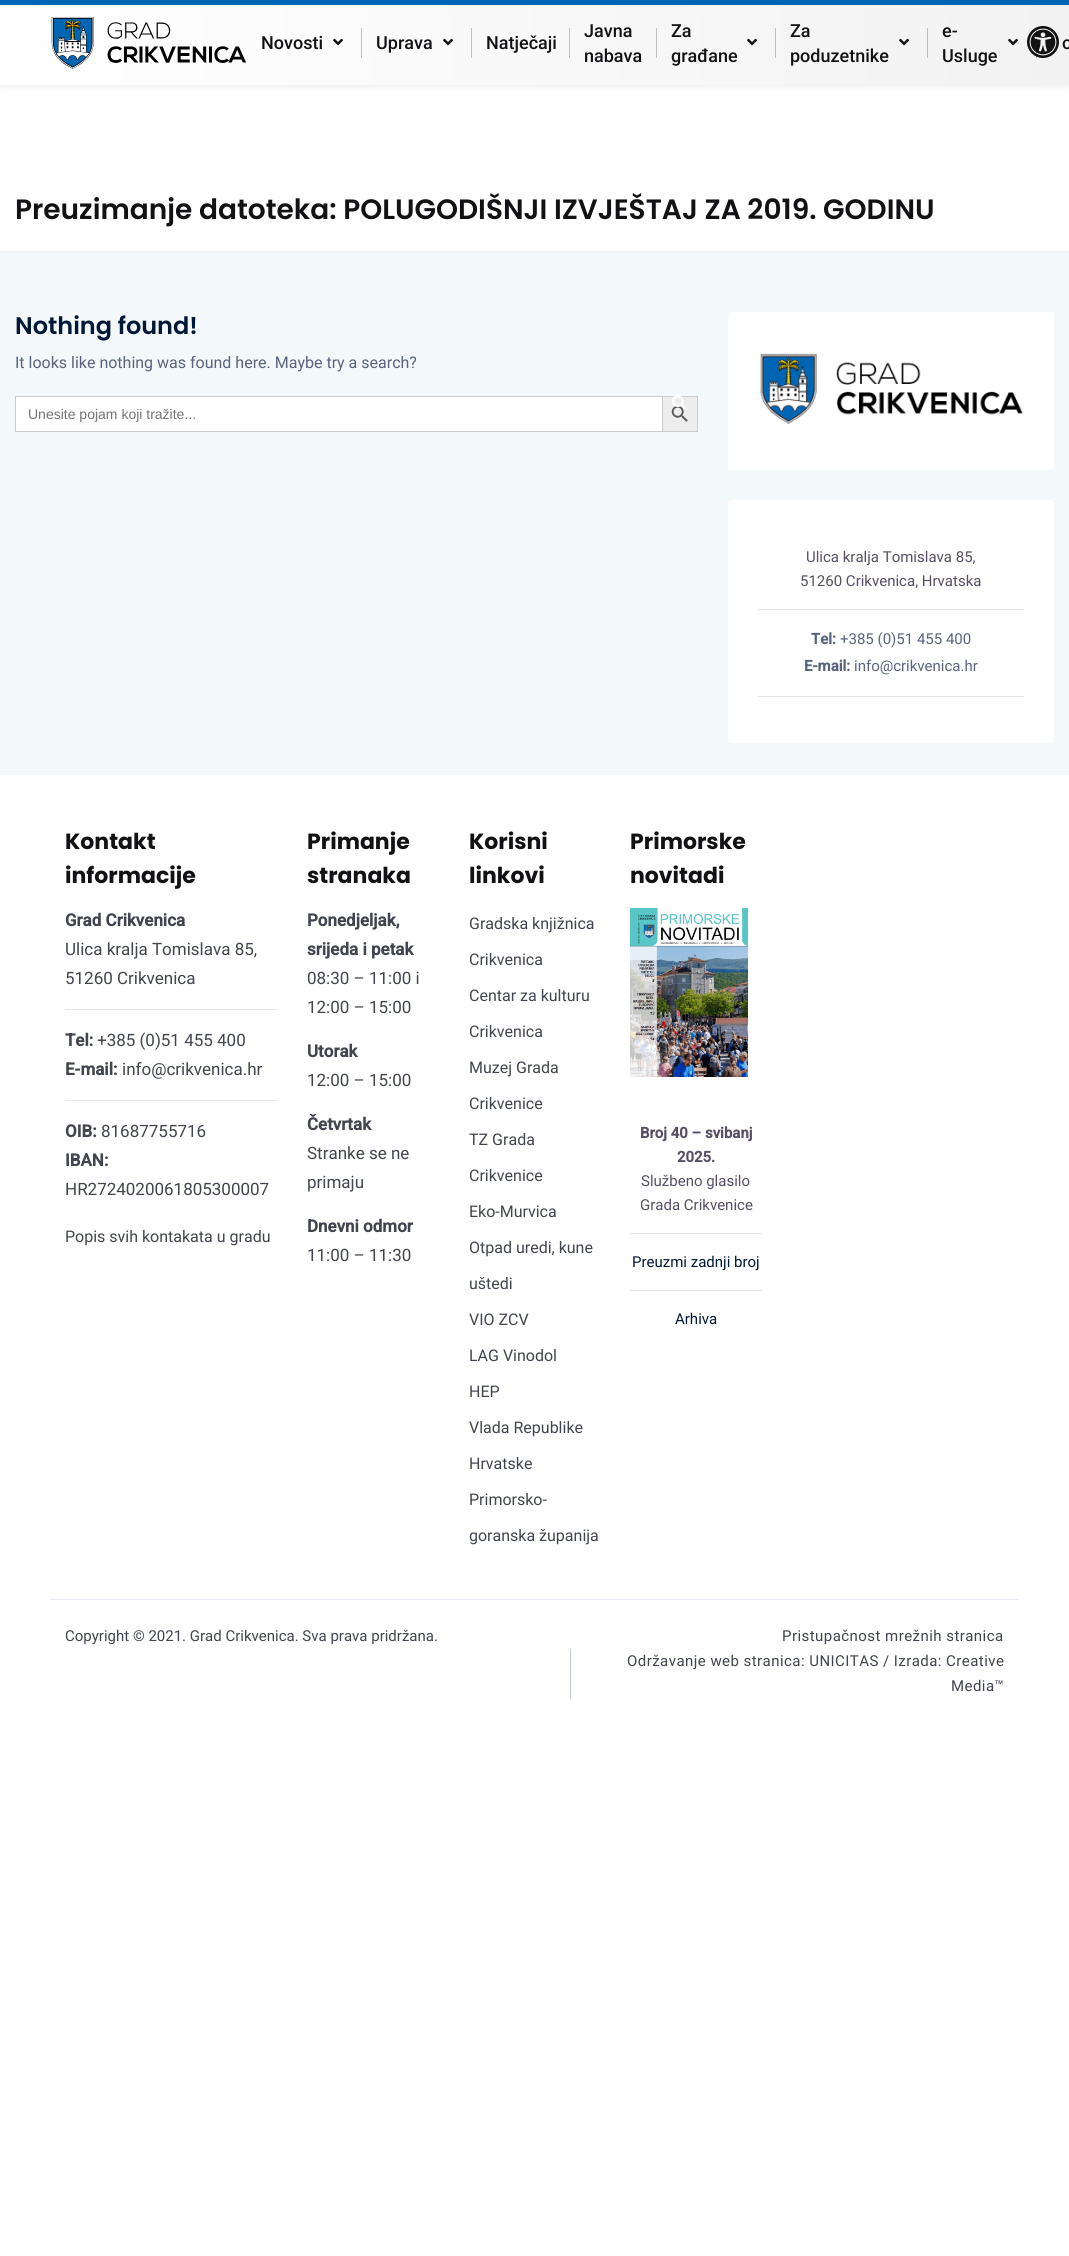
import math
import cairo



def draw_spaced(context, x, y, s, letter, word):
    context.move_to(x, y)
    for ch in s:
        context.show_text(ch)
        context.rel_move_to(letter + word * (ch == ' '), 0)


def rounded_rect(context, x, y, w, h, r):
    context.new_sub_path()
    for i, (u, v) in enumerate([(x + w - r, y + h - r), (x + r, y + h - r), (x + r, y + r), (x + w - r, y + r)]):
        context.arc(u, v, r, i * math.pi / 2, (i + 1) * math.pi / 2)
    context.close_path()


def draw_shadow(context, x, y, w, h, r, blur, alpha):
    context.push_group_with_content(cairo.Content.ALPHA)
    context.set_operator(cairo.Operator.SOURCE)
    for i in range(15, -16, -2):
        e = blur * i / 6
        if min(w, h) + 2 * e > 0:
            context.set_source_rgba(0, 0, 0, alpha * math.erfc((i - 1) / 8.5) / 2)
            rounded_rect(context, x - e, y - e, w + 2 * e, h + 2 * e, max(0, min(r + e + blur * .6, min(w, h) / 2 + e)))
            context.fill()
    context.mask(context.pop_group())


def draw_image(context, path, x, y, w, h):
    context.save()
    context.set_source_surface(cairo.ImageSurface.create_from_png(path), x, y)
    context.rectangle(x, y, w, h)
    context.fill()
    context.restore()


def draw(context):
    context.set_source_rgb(1, 1, 1)
    context.paint()
    context.set_source_rgb(0, 0, 0)
    draw_shadow(context, 0, 0, 1069, 85, 0, 5, 0.1)
    gradient = cairo.LinearGradient(-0.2, 82, 1069, 7.6)
    gradient.add_color_stop_rgba(0, 1, 1, 1, 1)
    gradient.add_color_stop_rgba(1, 242 / 255, 242 / 255, 242 / 255, 1)
    context.set_source(gradient)
    context.rectangle(0, 5, 1069, 80)
    context.fill()
    context.set_source_rgb(0, 102 / 255, 179 / 255)
    context.rectangle(0, 0, 1069, 5)
    context.fill()
    draw_image(context, "images/1.png", 51, 17, 195, 52)
    draw_image(context, "images/2.png", 333, 38, 10, 8)
    context.set_source_rgb(193 / 255, 193 / 255, 193 / 255)
    context.rectangle(361, 28, 1, 30)
    context.fill()
    draw_image(context, "images/3.png", 443, 38, 10, 8)
    context.set_source_rgb(191 / 255, 191 / 255, 192 / 255)
    context.rectangle(471, 28, 1, 30)
    context.fill()
    context.set_source_rgb(191 / 255, 191 / 255, 191 / 255)
    context.rectangle(569, 28, 1, 30)
    context.fill()
    context.set_source_rgb(190 / 255, 190 / 255, 190 / 255)
    context.rectangle(656, 28, 1, 30)
    context.fill()
    draw_image(context, "images/4.png", 747, 38, 10, 8)
    context.set_source_rgb(189 / 255, 189 / 255, 189 / 255)
    context.rectangle(775, 28, 1, 30)
    context.fill()
    draw_image(context, "images/5.png", 899, 38, 10, 8)
    context.set_source_rgb(188 / 255, 188 / 255, 188 / 255)
    context.rectangle(927, 28, 1, 30)
    context.fill()
    draw_image(context, "images/6.png", 1008, 38, 10, 8)
    context.set_source_rgb(186 / 255, 186 / 255, 186 / 255)
    context.rectangle(1036, 28, 1, 30)
    context.fill()
    draw_image(context, "images/7.png", 1027, 26, 32, 32)
    context.set_source_rgb(239 / 255, 239 / 255, 239 / 255)
    context.rectangle(0, 251, 1069, 1)
    context.fill()
    context.set_source_rgb(243 / 255, 248 / 255, 251 / 255)
    context.rectangle(0, 252, 1069, 523)
    context.fill()
    context.set_source_rgb(1, 1, 1)
    context.rectangle(16, 397, 646, 34)
    context.fill()
    context.set_source_rgb(204 / 255, 204 / 255, 204 / 255)
    context.rectangle(15, 396, 647, 1)
    context.fill()
    context.rectangle(15, 431, 647, 1)
    context.fill()
    context.rectangle(15, 396, 1, 36)
    context.fill()
    context.set_source_rgb(237 / 255, 237 / 255, 237 / 255)
    context.rectangle(662.5, 396.5, 35, 35)
    context.fill_preserve()
    context.set_source_rgb(204 / 255, 204 / 255, 204 / 255)
    context.set_line_width(1)
    context.stroke()
    draw_image(context, "images/9.png", 671, 406, 17, 16)
    draw_image(context, "images/8.png", 672, 395, 14, 14)
    context.set_source_rgb(1, 1, 1)
    rounded_rect(context, 728, 312, 326, 158, 3)
    context.fill()
    draw_image(context, "images/10.png", 760, 353, 263, 71)
    rounded_rect(context, 728, 500, 326, 243, 3)
    context.fill()
    context.set_source_rgb(230 / 255, 230 / 255, 230 / 255)
    context.rectangle(758, 609, 266, 1)
    context.fill()
    context.rectangle(758, 696, 266, 1)
    context.fill()
    context.rectangle(65, 1009, 212, 1)
    context.fill()
    context.rectangle(65, 1100, 212, 1)
    context.fill()
    draw_image(context, "images/11.png", 630, 908, 118, 169)
    context.rectangle(630, 1233, 132, 1)
    context.fill()
    context.rectangle(630, 1290, 132, 1)
    context.fill()
    context.set_source_rgb(229 / 255, 233 / 255, 242 / 255)
    context.rectangle(50, 1599, 969, 1)
    context.fill()
    context.set_source_rgb(192 / 255, 204 / 255, 218 / 255)
    context.rectangle(570, 1649, 1, 50)
    context.fill()
    context.select_font_face("Roboto Medium")
    context.set_font_size(18)
    context.set_source_rgb(18 / 255, 18 / 255, 21 / 255)
    context.move_to(261, 49)
    context.show_text("Novosti")
    context.move_to(376, 49)
    context.show_text("Uprava")
    context.move_to(486, 49)
    context.show_text("Natječaji")
    context.move_to(584, 37)
    context.show_text("Javna")
    context.move_to(584, 62)
    context.show_text("nabava")
    context.move_to(671, 37)
    context.show_text("Za")
    context.move_to(671, 62)
    context.show_text("građane")
    context.move_to(790, 37)
    context.show_text("Za")
    context.move_to(790, 62)
    context.show_text("poduzetnike")
    context.move_to(942, 37)
    context.show_text("e-")
    context.move_to(942, 62)
    context.show_text("Usluge")
    context.move_to(1062, 49)
    context.show_text("o")
    context.select_font_face("Poppins SemiBold")
    context.set_font_size(28)
    context.move_to(15, 219)
    context.show_text("Preuzimanje datoteka: POLUGODIŠNJI IZVJEŠTAJ ZA 2019. GODINU")
    context.set_font_size(24)
    context.set_source_rgb(0, 23 / 255, 55 / 255)
    context.move_to(15, 334)
    context.show_text("Nothing found!")
    context.select_font_face("Roboto")
    context.set_font_size(16)
    context.set_source_rgb(87 / 255, 100 / 255, 124 / 255)
    context.move_to(15, 368)
    context.show_text("It looks like nothing was found here. Maybe try a search?")
    context.select_font_face("Liberation Sans")
    context.set_font_size(14)
    context.set_source_rgb(117 / 255, 117 / 255, 117 / 255)
    context.move_to(28, 419)
    context.show_text("Unesite pojam koji tražite...")
    context.select_font_face("Roboto")
    context.set_font_size(15)
    context.set_source_rgb(87 / 255, 79 / 255, 99 / 255)
    context.move_to(806, 562)
    context.show_text("Ulica kralja Tomislava 85,")
    context.move_to(800, 586)
    context.show_text("51260 Crikvenica, Hrvatska")
    context.select_font_face("Roboto", cairo.FontSlant.NORMAL, cairo.FontWeight.BOLD)
    context.set_source_rgb(87 / 255, 100 / 255, 124 / 255)
    context.move_to(811, 644)
    context.show_text("Tel:")
    context.select_font_face("Roboto")
    context.move_to(840, 644)
    context.show_text("+385 (0)51 455 400")
    context.select_font_face("Roboto", cairo.FontSlant.NORMAL, cairo.FontWeight.BOLD)
    context.move_to(804, 671)
    context.show_text("E-mail:")
    context.select_font_face("Roboto")
    context.move_to(854, 671)
    context.show_text("info@crikvenica.hr")
    context.select_font_face("Poppins", cairo.FontSlant.NORMAL, cairo.FontWeight.BOLD)
    context.set_font_size(22)
    context.set_source_rgb(18 / 255, 18 / 255, 21 / 255)
    context.move_to(65, 849)
    context.show_text("Kontakt")
    context.move_to(65, 883)
    context.show_text("informacije")
    context.select_font_face("Roboto", cairo.FontSlant.NORMAL, cairo.FontWeight.BOLD)
    context.set_font_size(17)
    context.set_source_rgb(66 / 255, 69 / 255, 79 / 255)
    context.move_to(65, 926)
    context.show_text("Grad Crikvenica")
    context.select_font_face("Roboto")
    context.move_to(65, 955)
    context.show_text("Ulica kralja Tomislava 85,")
    context.move_to(65, 984)
    context.show_text("51260 Crikvenica")
    context.select_font_face("Roboto", cairo.FontSlant.NORMAL, cairo.FontWeight.BOLD)
    context.move_to(65, 1046)
    context.show_text("Tel:")
    context.select_font_face("Roboto")
    context.move_to(97, 1046)
    context.show_text("+385 (0)51 455 400")
    context.select_font_face("Roboto", cairo.FontSlant.NORMAL, cairo.FontWeight.BOLD)
    context.move_to(65, 1075)
    context.show_text("E-mail:")
    context.select_font_face("Roboto")
    context.move_to(122, 1075)
    context.show_text("info@crikvenica.hr")
    context.select_font_face("Roboto", cairo.FontSlant.NORMAL, cairo.FontWeight.BOLD)
    context.move_to(65, 1137)
    context.show_text("OIB:")
    context.select_font_face("Roboto")
    context.move_to(101, 1137)
    context.show_text("81687755716")
    context.select_font_face("Roboto", cairo.FontSlant.NORMAL, cairo.FontWeight.BOLD)
    context.move_to(65, 1166)
    context.show_text("IBAN:")
    context.select_font_face("Roboto")
    context.move_to(65, 1195)
    context.show_text("HR2724020061805300007")
    context.set_font_size(16)
    context.move_to(65, 1242)
    context.show_text("Popis svih kontakata u gradu")
    context.select_font_face("Poppins", cairo.FontSlant.NORMAL, cairo.FontWeight.BOLD)
    context.set_font_size(22)
    context.set_source_rgb(18 / 255, 18 / 255, 21 / 255)
    context.move_to(307, 849)
    context.show_text("Primanje")
    context.move_to(307, 883)
    context.show_text("stranaka")
    context.select_font_face("Roboto", cairo.FontSlant.NORMAL, cairo.FontWeight.BOLD)
    context.set_font_size(17)
    context.set_source_rgb(66 / 255, 69 / 255, 79 / 255)
    context.move_to(307, 926)
    context.show_text("Ponedjeljak,")
    context.move_to(307, 955)
    context.show_text("srijeda i petak")
    context.select_font_face("Roboto")
    context.move_to(307, 984)
    context.show_text("08:30 – 11:00 i")
    context.move_to(307, 1013)
    context.show_text("12:00 – 15:00")
    context.select_font_face("Roboto", cairo.FontSlant.NORMAL, cairo.FontWeight.BOLD)
    context.move_to(307, 1057)
    context.show_text("Utorak")
    context.select_font_face("Roboto")
    context.move_to(307, 1086)
    context.show_text("12:00 – 15:00")
    context.select_font_face("Roboto", cairo.FontSlant.NORMAL, cairo.FontWeight.BOLD)
    context.move_to(307, 1130)
    context.show_text("Četvrtak")
    context.select_font_face("Roboto")
    context.move_to(307, 1159)
    context.show_text("Stranke se ne")
    context.move_to(307, 1188)
    context.show_text("primaju")
    context.select_font_face("Roboto", cairo.FontSlant.NORMAL, cairo.FontWeight.BOLD)
    context.move_to(307, 1232)
    context.show_text("Dnevni odmor")
    context.select_font_face("Roboto")
    context.move_to(307, 1261)
    context.show_text("11:00 – 11:30")
    context.select_font_face("Poppins", cairo.FontSlant.NORMAL, cairo.FontWeight.BOLD)
    context.set_font_size(22)
    context.set_source_rgb(18 / 255, 18 / 255, 21 / 255)
    context.move_to(469, 849)
    context.show_text("Korisni")
    context.move_to(469, 883)
    context.show_text("linkovi")
    context.select_font_face("Roboto")
    context.set_font_size(16)
    context.set_source_rgb(66 / 255, 69 / 255, 79 / 255)
    context.move_to(469, 929)
    context.show_text("Gradska knjižnica")
    context.move_to(469, 965)
    context.show_text("Crikvenica")
    context.move_to(469, 1001)
    context.show_text("Centar za kulturu")
    context.move_to(469, 1037)
    context.show_text("Crikvenica")
    context.move_to(469, 1073)
    context.show_text("Muzej Grada")
    context.move_to(469, 1109)
    context.show_text("Crikvenice")
    context.move_to(469, 1145)
    context.show_text("TZ Grada")
    context.move_to(469, 1181)
    context.show_text("Crikvenice")
    context.move_to(469, 1217)
    context.show_text("Eko-Murvica")
    context.move_to(469, 1253)
    context.show_text("Otpad uredi, kune")
    context.move_to(469, 1289)
    context.show_text("uštedi")
    context.move_to(469, 1325)
    context.show_text("VIO ZCV")
    context.move_to(469, 1361)
    context.show_text("LAG Vinodol")
    context.move_to(469, 1397)
    context.show_text("HEP")
    context.move_to(469, 1433)
    context.show_text("Vlada Republike")
    context.move_to(469, 1469)
    context.show_text("Hrvatske")
    context.move_to(469, 1505)
    context.show_text("Primorsko-")
    context.move_to(469, 1541)
    context.show_text("goranska županija")
    context.select_font_face("Poppins", cairo.FontSlant.NORMAL, cairo.FontWeight.BOLD)
    context.set_font_size(22)
    context.set_source_rgb(18 / 255, 18 / 255, 21 / 255)
    context.move_to(630, 849)
    context.show_text("Primorske")
    context.move_to(630, 883)
    context.show_text("novitadi")
    context.select_font_face("Roboto", cairo.FontSlant.NORMAL, cairo.FontWeight.BOLD)
    context.set_font_size(15)
    context.set_source_rgb(87 / 255, 79 / 255, 99 / 255)
    context.move_to(640, 1138)
    context.show_text("Broj 40 – svibanj")
    context.move_to(677, 1162)
    context.show_text("2025.")
    context.select_font_face("Roboto")
    context.move_to(641, 1186)
    context.show_text("Službeno glasilo")
    context.move_to(640, 1210)
    context.show_text("Grada Crikvenice")
    context.set_source_rgb(0, 23 / 255, 55 / 255)
    context.move_to(632, 1267)
    context.show_text("Preuzmi zadnji broj")
    context.move_to(675, 1324)
    context.show_text("Arhiva")
    context.set_source_rgb(66 / 255, 69 / 255, 79 / 255)
    context.move_to(65, 1641)
    context.show_text("Copyright © 2021. Grad Crikvenica. Sva prava pridržana.")
    draw_spaced(context, 782, 1641, "Pristupačnost mrežnih stranica", 0.45, 0)
    draw_spaced(context, 627, 1666, "Održavanje web stranica: UNICITAS / Izrada: Creative", 0.45, 0)
    draw_spaced(context, 951, 1691, "Media™", 0.45, 0)


surface = cairo.ImageSurface(cairo.Format.RGB24, 1069, 2256)
context = cairo.Context(surface)
options = cairo.FontOptions()
options.set_hint_metrics(cairo.HintMetrics.OFF)
options.set_hint_style(cairo.HintStyle.NONE)
context.set_font_options(options)
context.set_miter_limit(4)
draw(context)
surface.write_to_png("out.png")
